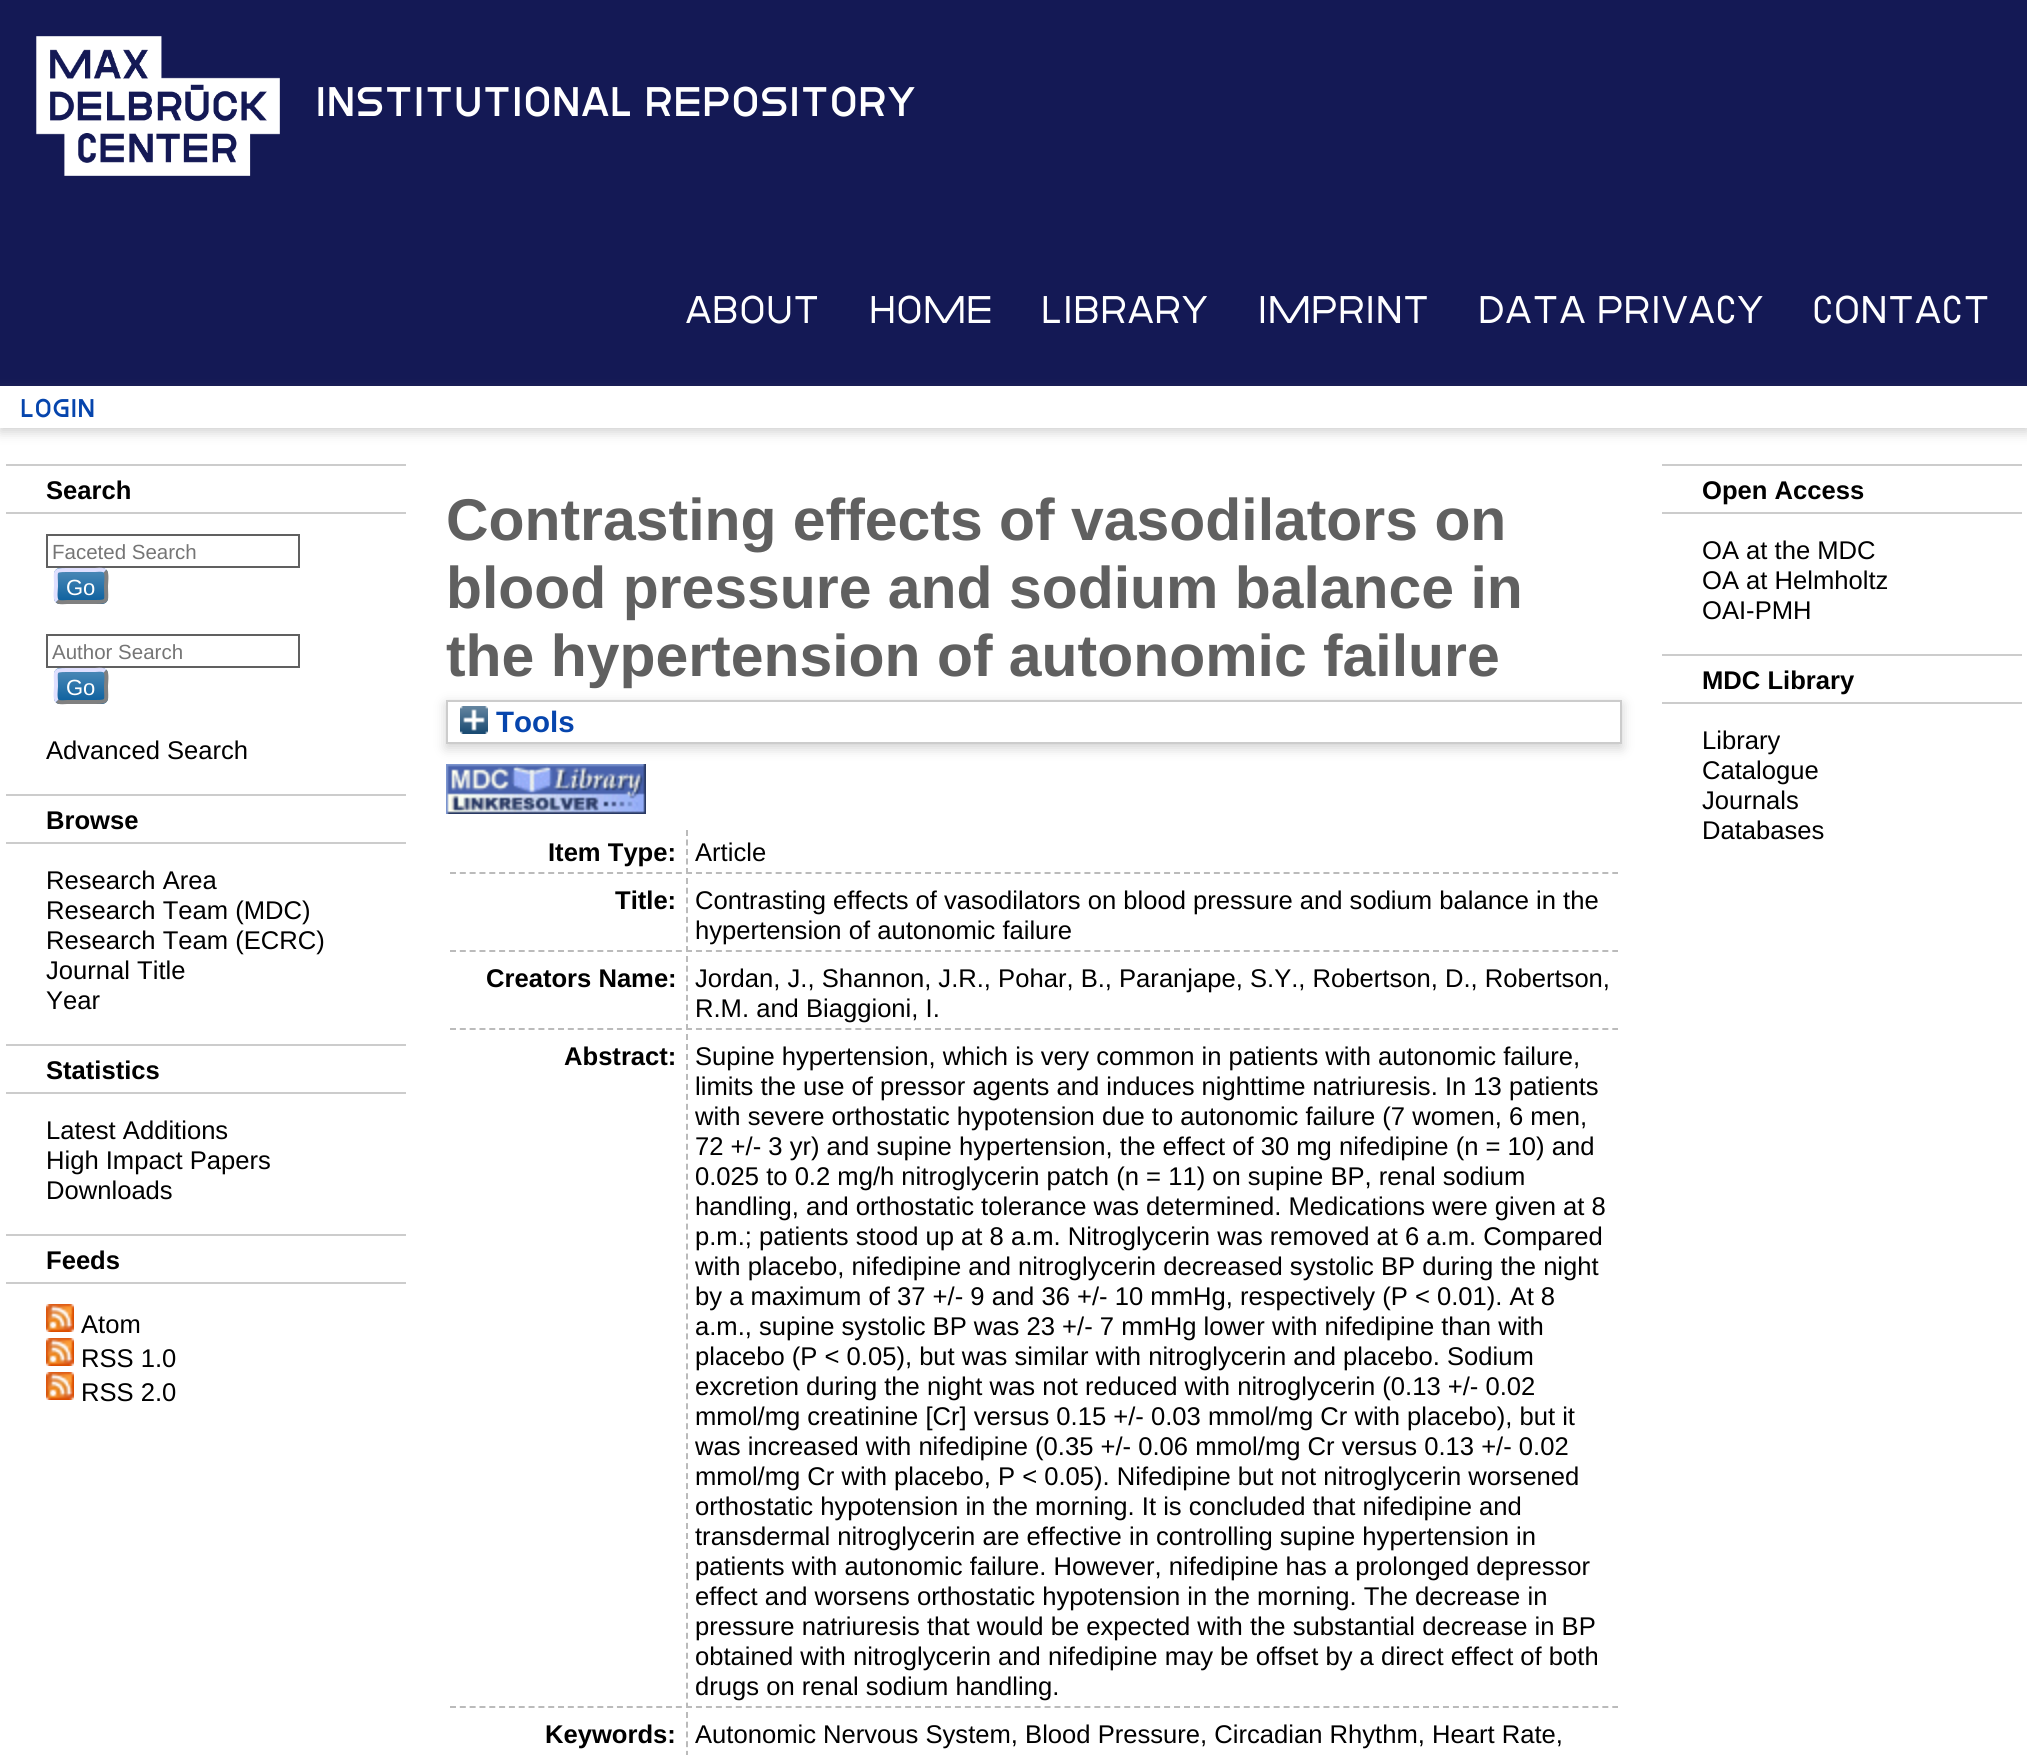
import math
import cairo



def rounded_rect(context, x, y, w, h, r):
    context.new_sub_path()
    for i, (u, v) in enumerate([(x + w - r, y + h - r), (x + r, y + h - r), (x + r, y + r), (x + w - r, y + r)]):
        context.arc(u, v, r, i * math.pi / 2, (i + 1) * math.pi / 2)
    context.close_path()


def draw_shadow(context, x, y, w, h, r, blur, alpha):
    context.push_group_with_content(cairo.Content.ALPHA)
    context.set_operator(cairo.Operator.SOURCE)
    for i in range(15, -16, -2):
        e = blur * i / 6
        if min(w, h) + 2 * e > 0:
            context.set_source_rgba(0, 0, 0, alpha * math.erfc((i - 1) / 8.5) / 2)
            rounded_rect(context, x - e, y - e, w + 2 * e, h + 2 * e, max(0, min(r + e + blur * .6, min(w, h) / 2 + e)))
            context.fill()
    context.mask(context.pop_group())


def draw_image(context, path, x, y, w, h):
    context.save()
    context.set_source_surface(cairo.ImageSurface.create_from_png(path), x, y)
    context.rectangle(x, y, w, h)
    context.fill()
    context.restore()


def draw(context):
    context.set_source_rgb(1, 1, 1)
    context.paint()
    context.set_source_rgb(20 / 255, 25 / 255, 85 / 255)
    context.rectangle(0, 0, 2027, 386)
    context.fill()
    draw_image(context, "images/1.png", 36, 36, 244, 140)
    context.set_source_rgb(100 / 255, 100 / 255, 100 / 255)
    draw_shadow(context, 0, 390, 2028, 42, 0, 6, 0.3)
    context.set_source_rgb(1, 1, 1)
    context.rectangle(0, 386, 2027, 42)
    context.fill()
    context.set_source_rgb(204 / 255, 204 / 255, 204 / 255)
    context.rectangle(6, 464, 400, 2)
    context.fill()
    context.rectangle(6, 512, 400, 2)
    context.fill()
    context.rectangle(47, 535, 252, 32)
    context.set_source_rgb(96 / 255, 96 / 255, 96 / 255)
    context.stroke()
    context.set_source_rgb(0, 88 / 255, 153 / 255)
    rounded_rect(context, 54, 568, 54, 36, 6)
    context.fill()
    draw_image(context, "images/2.png", 54, 568, 54, 36)
    context.new_path()
    context.move_to(105, 571)
    context.curve_to(107.5, 573.5, 106, 583, 106, 586)
    context.curve_to(106, 601, 109, 602, 95, 602)
    context.line_to(67, 602)
    context.curve_to(65, 602, 59.5, 603, 57, 601)
    context.set_source_rgb(128 / 255, 128 / 255, 128 / 255)
    context.set_line_width(4)
    context.stroke()
    context.new_path()
    context.move_to(57, 601)
    context.curve_to(54.5, 598.5, 56, 589, 56, 586)
    context.curve_to(56, 571, 53, 570, 67, 570)
    context.line_to(95, 570)
    context.curve_to(97, 570, 102.5, 569, 105, 571)
    context.set_source_rgb(224 / 255, 224 / 255, 1)
    context.stroke()
    context.rectangle(47, 635, 252, 32)
    context.set_source_rgb(96 / 255, 96 / 255, 96 / 255)
    context.set_line_width(2)
    context.stroke()
    context.set_source_rgb(0, 88 / 255, 153 / 255)
    rounded_rect(context, 54, 668, 54, 36, 6)
    context.fill()
    draw_image(context, "images/2.png", 54, 668, 54, 36)
    context.new_path()
    context.move_to(105, 671)
    context.curve_to(107.5, 673.5, 106, 683, 106, 686)
    context.curve_to(106, 701, 109, 702, 95, 702)
    context.line_to(67, 702)
    context.curve_to(65, 702, 59.5, 703, 57, 701)
    context.set_source_rgb(128 / 255, 128 / 255, 128 / 255)
    context.set_line_width(4)
    context.stroke()
    context.new_path()
    context.move_to(57, 701)
    context.curve_to(54.5, 698.5, 56, 689, 56, 686)
    context.curve_to(56, 671, 53, 670, 67, 670)
    context.line_to(95, 670)
    context.curve_to(97, 670, 102.5, 669, 105, 671)
    context.set_source_rgb(224 / 255, 224 / 255, 1)
    context.stroke()
    context.set_source_rgb(204 / 255, 204 / 255, 204 / 255)
    context.rectangle(6, 794, 400, 2)
    context.fill()
    context.rectangle(6, 842, 400, 2)
    context.fill()
    context.rectangle(6, 1044, 400, 2)
    context.fill()
    context.rectangle(6, 1092, 400, 2)
    context.fill()
    context.rectangle(6, 1234, 400, 2)
    context.fill()
    context.rectangle(6, 1282, 400, 2)
    context.fill()
    draw_image(context, "images/3.png", 46, 1304, 28, 28)
    draw_image(context, "images/3.png", 46, 1338, 28, 28)
    draw_image(context, "images/3.png", 46, 1372, 28, 28)
    context.save()
    context.set_fill_rule(cairo.FillRule.EVEN_ODD)
    context.new_path()
    context.move_to(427, 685)
    context.line_to(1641, 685)
    context.line_to(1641, 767)
    context.line_to(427, 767)
    context.close_path()
    context.move_to(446, 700)
    context.line_to(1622, 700)
    context.line_to(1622, 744)
    context.line_to(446, 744)
    context.close_path()
    context.clip()
    context.set_source_rgb(100 / 255, 100 / 255, 100 / 255)
    draw_shadow(context, 446, 704, 1176, 44, 0, 6, 0.3)
    context.restore()
    context.rectangle(447, 701, 1174, 42)
    context.set_line_width(2)
    context.stroke()
    draw_image(context, "images/4.png", 460, 706, 28, 28)
    draw_image(context, "images/5.png", 446, 764, 200, 50)
    context.new_path()
    context.move_to(450, 873)
    context.line_to(682, 873)
    context.set_source_rgb(187 / 255, 187 / 255, 187 / 255)
    context.set_dash([6, 3.82])
    context.stroke()
    context.new_path()
    context.move_to(686, 873)
    context.line_to(1618, 873)
    context.set_dash([6, 3.96])
    context.stroke()
    context.new_path()
    context.move_to(687, 830)
    context.line_to(687, 874)
    context.set_dash([6, 3.5])
    context.stroke()
    context.new_path()
    context.move_to(450, 951)
    context.line_to(682, 951)
    context.set_dash([6, 3.82])
    context.stroke()
    context.new_path()
    context.move_to(686, 951)
    context.line_to(1618, 951)
    context.set_dash([6, 3.96])
    context.stroke()
    context.new_path()
    context.move_to(687, 878)
    context.line_to(687, 952)
    context.set_dash([6, 3.72])
    context.stroke()
    context.new_path()
    context.move_to(450, 1029)
    context.line_to(682, 1029)
    context.set_dash([6, 3.82])
    context.stroke()
    context.new_path()
    context.move_to(686, 1029)
    context.line_to(1618, 1029)
    context.set_dash([6, 3.96])
    context.stroke()
    context.new_path()
    context.move_to(687, 956)
    context.line_to(687, 1030)
    context.set_dash([6, 3.72])
    context.stroke()
    context.new_path()
    context.move_to(450, 1707)
    context.line_to(682, 1707)
    context.set_dash([6, 3.82])
    context.stroke()
    context.new_path()
    context.move_to(686, 1707)
    context.line_to(1618, 1707)
    context.set_dash([6, 3.96])
    context.stroke()
    context.new_path()
    context.move_to(687, 1034)
    context.line_to(687, 1708)
    context.set_dash([6, 3.98])
    context.stroke()
    context.new_path()
    context.move_to(687, 1712)
    context.line_to(687, 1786)
    context.set_dash([6, 3.72])
    context.stroke()
    context.set_source_rgb(204 / 255, 204 / 255, 204 / 255)
    context.rectangle(1662, 464, 360, 2)
    context.fill()
    context.rectangle(1662, 512, 360, 2)
    context.fill()
    context.rectangle(1662, 654, 360, 2)
    context.fill()
    context.rectangle(1662, 702, 360, 2)
    context.fill()
    context.select_font_face("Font", cairo.FontSlant.NORMAL, cairo.FontWeight.BOLD)
    context.set_font_size(41.25)
    context.set_source_rgb(1, 1, 1)
    context.move_to(315, 116)
    context.show_text("Institutional Repository")
    context.select_font_face("Font Medium")
    context.set_font_size(38.5)
    context.move_to(685, 323)
    context.show_text("About")
    context.move_to(869, 323)
    context.show_text("Home")
    context.move_to(1041, 323)
    context.show_text("Library")
    context.move_to(1257, 323)
    context.show_text("Imprint")
    context.move_to(1478, 323)
    context.show_text("Data Privacy")
    context.move_to(1812, 323)
    context.show_text("Contact")
    context.select_font_face("Font", cairo.FontSlant.NORMAL, cairo.FontWeight.BOLD)
    context.set_font_size(25.6)
    context.set_source_rgb(6 / 255, 69 / 255, 173 / 255)
    context.move_to(20, 417)
    context.show_text("Login")
    context.select_font_face("Liberation Sans", cairo.FontSlant.NORMAL, cairo.FontWeight.BOLD)
    context.set_source_rgb(0, 0, 0)
    context.move_to(46, 499)
    context.show_text("Search")
    context.select_font_face("Liberation Sans")
    context.set_font_size(20.5)
    context.set_source_rgb(117 / 255, 117 / 255, 117 / 255)
    context.move_to(52, 559)
    context.show_text("Faceted Search")
    context.set_font_size(22)
    context.set_source_rgb(1, 1, 1)
    context.move_to(66, 595)
    context.show_text("Go")
    context.set_font_size(20.5)
    context.set_source_rgb(117 / 255, 117 / 255, 117 / 255)
    context.move_to(52, 659)
    context.show_text("Author Search")
    context.set_font_size(22)
    context.set_source_rgb(1, 1, 1)
    context.move_to(66, 695)
    context.show_text("Go")
    context.set_font_size(25.6)
    context.set_source_rgb(0, 0, 0)
    context.move_to(46, 759)
    context.show_text("Advanced Search")
    context.select_font_face("Liberation Sans", cairo.FontSlant.NORMAL, cairo.FontWeight.BOLD)
    context.move_to(46, 829)
    context.show_text("Browse")
    context.select_font_face("Liberation Sans")
    context.move_to(46, 889)
    context.show_text("Research Area")
    context.move_to(46, 919)
    context.show_text("Research Team (MDC)")
    context.move_to(46, 949)
    context.show_text("Research Team (ECRC)")
    context.move_to(46, 979)
    context.show_text("Journal Title")
    context.move_to(46, 1009)
    context.show_text("Year")
    context.select_font_face("Liberation Sans", cairo.FontSlant.NORMAL, cairo.FontWeight.BOLD)
    context.move_to(46, 1079)
    context.show_text("Statistics")
    context.select_font_face("Liberation Sans")
    context.move_to(46, 1139)
    context.show_text("Latest Additions")
    context.move_to(46, 1169)
    context.show_text("High Impact Papers")
    context.move_to(46, 1199)
    context.show_text("Downloads")
    context.select_font_face("Liberation Sans", cairo.FontSlant.NORMAL, cairo.FontWeight.BOLD)
    context.move_to(46, 1269)
    context.show_text("Feeds")
    context.select_font_face("Liberation Sans")
    context.move_to(81, 1333)
    context.show_text("Atom")
    context.move_to(81, 1367)
    context.show_text("RSS 1.0")
    context.move_to(81, 1401)
    context.show_text("RSS 2.0")
    context.select_font_face("Liberation Sans", cairo.FontSlant.NORMAL, cairo.FontWeight.BOLD)
    context.set_font_size(58.9)
    context.set_source_rgb(96 / 255, 96 / 255, 96 / 255)
    context.move_to(446, 540)
    context.show_text("Contrasting effects of vasodilators on")
    context.move_to(446, 608)
    context.show_text("blood pressure and sodium balance in")
    context.move_to(446, 676)
    context.show_text("the hypertension of autonomic failure")
    context.set_font_size(29.5)
    context.set_source_rgb(6 / 255, 69 / 255, 173 / 255)
    context.move_to(496, 732)
    context.show_text("Tools")
    context.set_font_size(25.6)
    context.set_source_rgb(0, 0, 0)
    context.move_to(548, 861)
    context.show_text("Item Type:")
    context.select_font_face("Liberation Sans")
    context.move_to(695, 861)
    context.show_text("Article")
    context.select_font_face("Liberation Sans", cairo.FontSlant.NORMAL, cairo.FontWeight.BOLD)
    context.move_to(615, 909)
    context.show_text("Title:")
    context.select_font_face("Liberation Sans")
    context.move_to(695, 909)
    context.show_text("Contrasting effects of vasodilators on blood pressure and sodium balance in the")
    context.move_to(695, 939)
    context.show_text("hypertension of autonomic failure")
    context.select_font_face("Liberation Sans", cairo.FontSlant.NORMAL, cairo.FontWeight.BOLD)
    context.move_to(486, 987)
    context.show_text("Creators Name:")
    context.select_font_face("Liberation Sans")
    context.move_to(695, 987)
    context.show_text("Jordan, J., Shannon, J.R., Pohar, B., Paranjape, S.Y., Robertson, D., Robertson,")
    context.move_to(695, 1017)
    context.show_text("R.M. and Biaggioni, I.")
    context.select_font_face("Liberation Sans", cairo.FontSlant.NORMAL, cairo.FontWeight.BOLD)
    context.move_to(564, 1065)
    context.show_text("Abstract:")
    context.select_font_face("Liberation Sans")
    context.move_to(695, 1065)
    context.show_text("Supine hypertension, which is very common in patients with autonomic failure,")
    context.move_to(695, 1095)
    context.show_text("limits the use of pressor agents and induces nighttime natriuresis. In 13 patients")
    context.move_to(695, 1125)
    context.show_text("with severe orthostatic hypotension due to autonomic failure (7 women, 6 men,")
    context.move_to(695, 1155)
    context.show_text("72 +/- 3 yr) and supine hypertension, the effect of 30 mg nifedipine (n = 10) and")
    context.move_to(695, 1185)
    context.show_text("0.025 to 0.2 mg/h nitroglycerin patch (n = 11) on supine BP, renal sodium")
    context.move_to(695, 1215)
    context.show_text("handling, and orthostatic tolerance was determined. Medications were given at 8")
    context.move_to(695, 1245)
    context.show_text("p.m.; patients stood up at 8 a.m. Nitroglycerin was removed at 6 a.m. Compared")
    context.move_to(695, 1275)
    context.show_text("with placebo, nifedipine and nitroglycerin decreased systolic BP during the night")
    context.move_to(695, 1305)
    context.show_text("by a maximum of 37 +/- 9 and 36 +/- 10 mmHg, respectively (P < 0.01). At 8")
    context.move_to(695, 1335)
    context.show_text("a.m., supine systolic BP was 23 +/- 7 mmHg lower with nifedipine than with")
    context.move_to(695, 1365)
    context.show_text("placebo (P < 0.05), but was similar with nitroglycerin and placebo. Sodium")
    context.move_to(695, 1395)
    context.show_text("excretion during the night was not reduced with nitroglycerin (0.13 +/- 0.02")
    context.move_to(695, 1425)
    context.show_text("mmol/mg creatinine [Cr] versus 0.15 +/- 0.03 mmol/mg Cr with placebo), but it")
    context.move_to(695, 1455)
    context.show_text("was increased with nifedipine (0.35 +/- 0.06 mmol/mg Cr versus 0.13 +/- 0.02")
    context.move_to(695, 1485)
    context.show_text("mmol/mg Cr with placebo, P < 0.05). Nifedipine but not nitroglycerin worsened")
    context.move_to(695, 1515)
    context.show_text("orthostatic hypotension in the morning. It is concluded that nifedipine and")
    context.move_to(695, 1545)
    context.show_text("transdermal nitroglycerin are effective in controlling supine hypertension in")
    context.move_to(695, 1575)
    context.show_text("patients with autonomic failure. However, nifedipine has a prolonged depressor")
    context.move_to(695, 1605)
    context.show_text("effect and worsens orthostatic hypotension in the morning. The decrease in")
    context.move_to(695, 1635)
    context.show_text("pressure natriuresis that would be expected with the substantial decrease in BP")
    context.move_to(695, 1665)
    context.show_text("obtained with nitroglycerin and nifedipine may be offset by a direct effect of both")
    context.move_to(695, 1695)
    context.show_text("drugs on renal sodium handling.")
    context.select_font_face("Liberation Sans", cairo.FontSlant.NORMAL, cairo.FontWeight.BOLD)
    context.move_to(545, 1743)
    context.show_text("Keywords:")
    context.select_font_face("Liberation Sans")
    context.move_to(695, 1743)
    context.show_text("Autonomic Nervous System, Blood Pressure, Circadian Rhythm, Heart Rate,")
    context.select_font_face("Liberation Sans", cairo.FontSlant.NORMAL, cairo.FontWeight.BOLD)
    context.move_to(1702, 499)
    context.show_text("Open Access")
    context.select_font_face("Liberation Sans")
    context.move_to(1702, 559)
    context.show_text("OA at the MDC")
    context.move_to(1702, 589)
    context.show_text("OA at Helmholtz")
    context.move_to(1702, 619)
    context.show_text("OAI-PMH")
    context.select_font_face("Liberation Sans", cairo.FontSlant.NORMAL, cairo.FontWeight.BOLD)
    context.move_to(1702, 689)
    context.show_text("MDC Library")
    context.select_font_face("Liberation Sans")
    context.move_to(1702, 749)
    context.show_text("Library")
    context.move_to(1702, 779)
    context.show_text("Catalogue")
    context.move_to(1702, 809)
    context.show_text("Journals")
    context.move_to(1702, 839)
    context.show_text("Databases")


surface = cairo.ImageSurface(cairo.Format.RGB24, 2027, 1755)
context = cairo.Context(surface)
options = cairo.FontOptions()
options.set_hint_metrics(cairo.HintMetrics.OFF)
options.set_hint_style(cairo.HintStyle.NONE)
context.set_font_options(options)
context.set_miter_limit(4)
draw(context)
surface.write_to_png("out.png")
